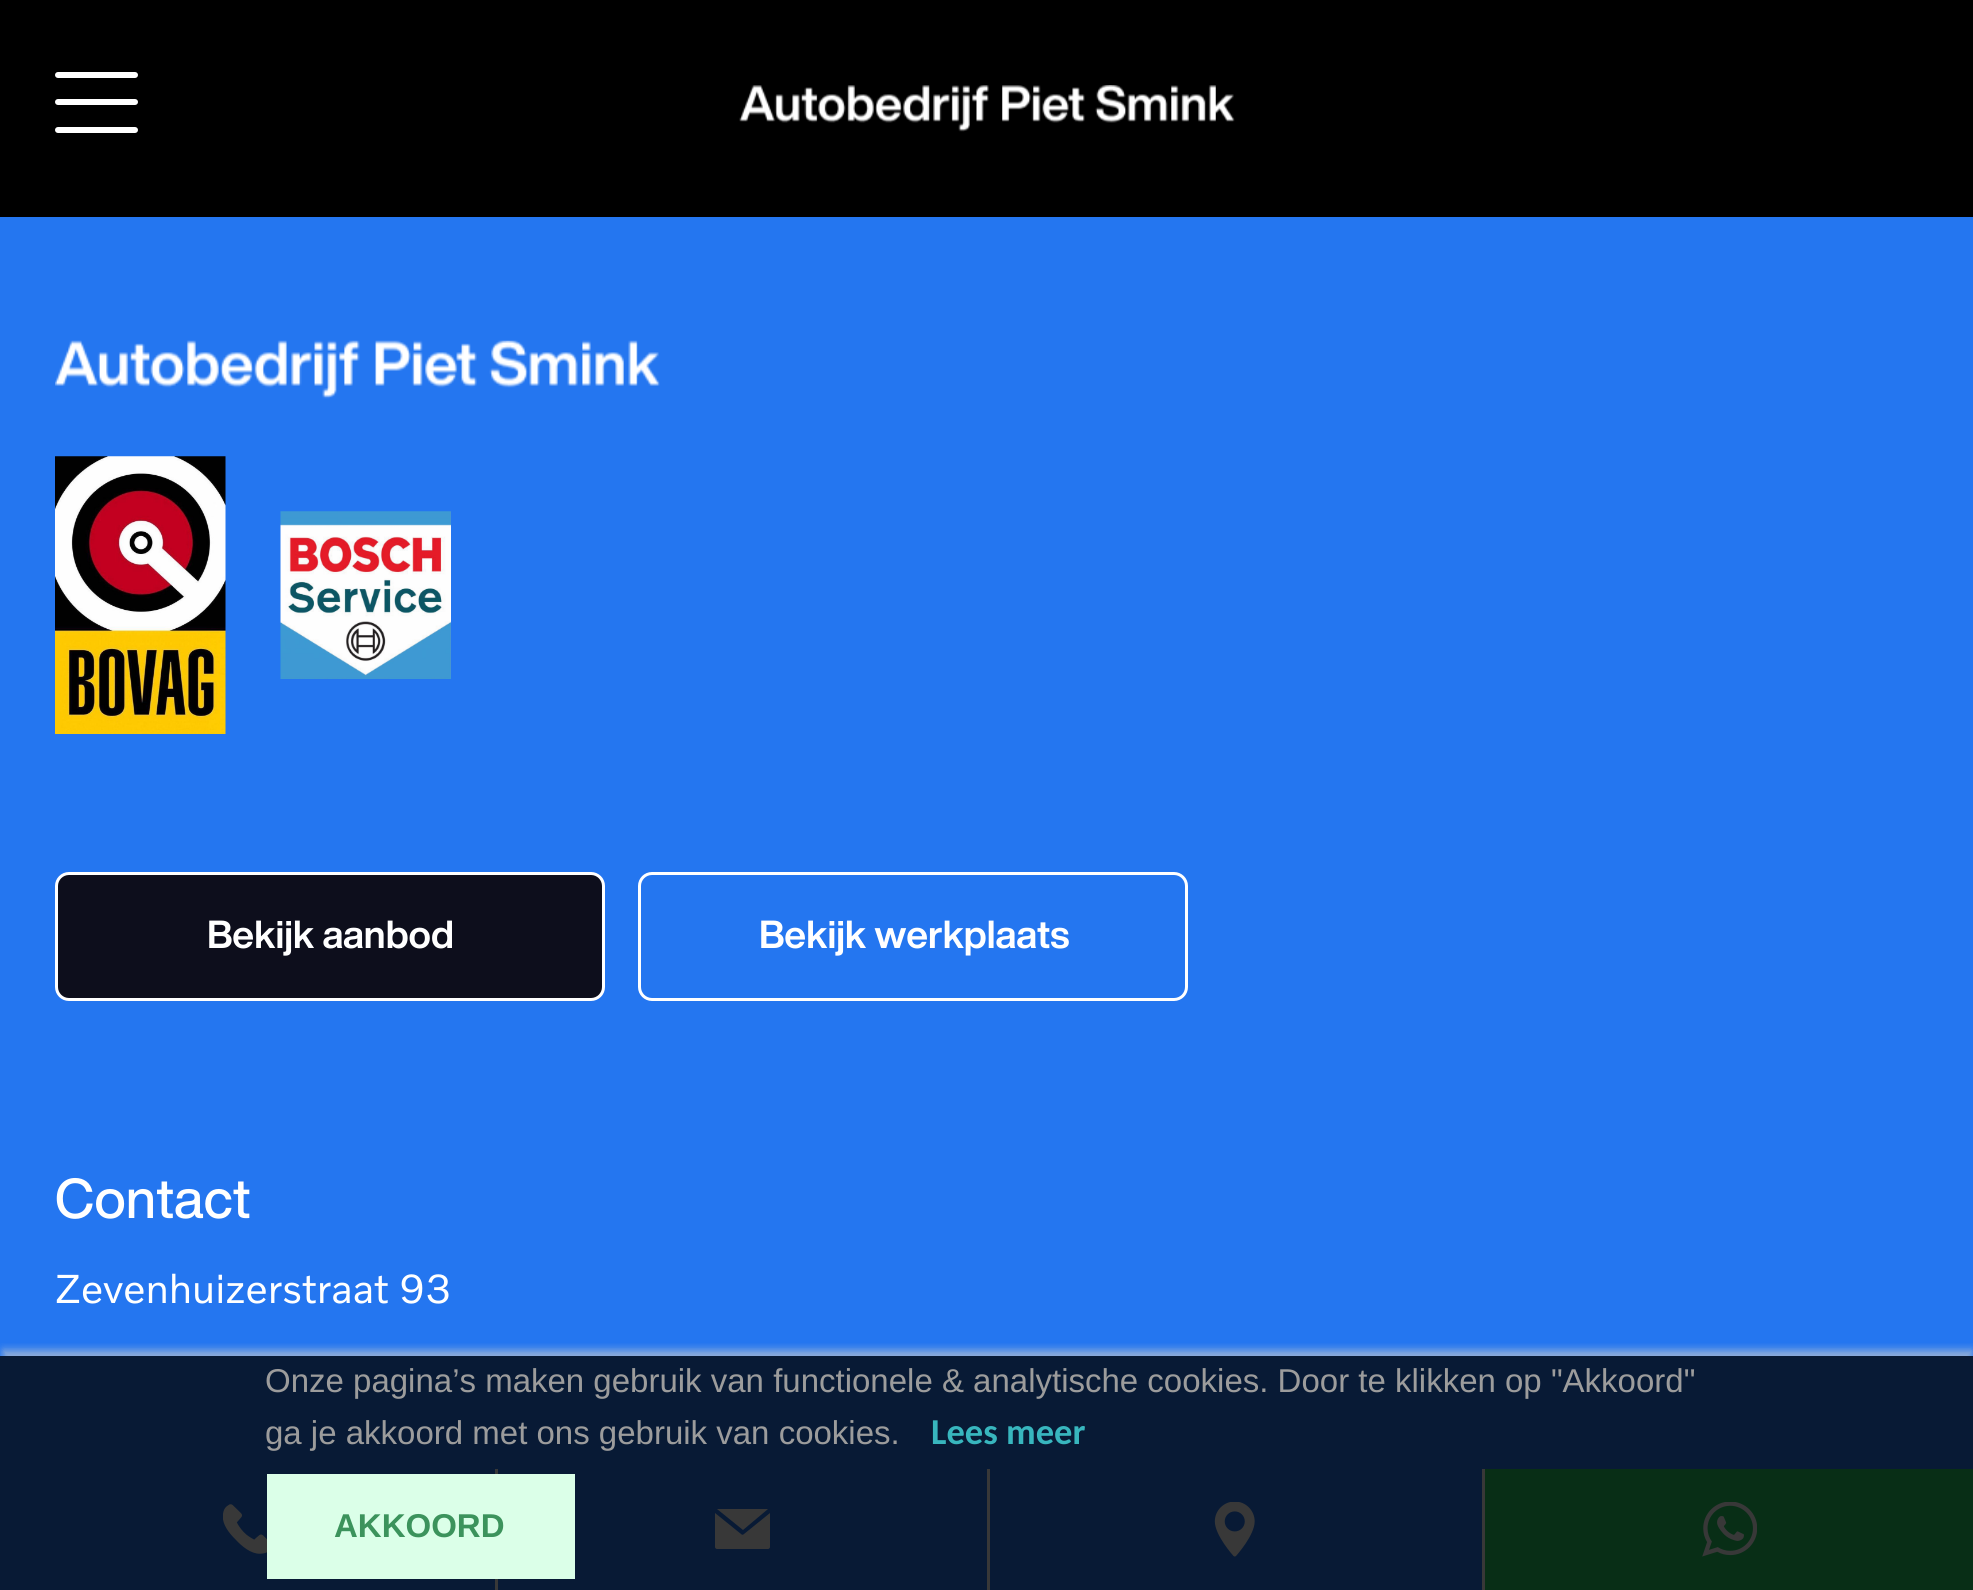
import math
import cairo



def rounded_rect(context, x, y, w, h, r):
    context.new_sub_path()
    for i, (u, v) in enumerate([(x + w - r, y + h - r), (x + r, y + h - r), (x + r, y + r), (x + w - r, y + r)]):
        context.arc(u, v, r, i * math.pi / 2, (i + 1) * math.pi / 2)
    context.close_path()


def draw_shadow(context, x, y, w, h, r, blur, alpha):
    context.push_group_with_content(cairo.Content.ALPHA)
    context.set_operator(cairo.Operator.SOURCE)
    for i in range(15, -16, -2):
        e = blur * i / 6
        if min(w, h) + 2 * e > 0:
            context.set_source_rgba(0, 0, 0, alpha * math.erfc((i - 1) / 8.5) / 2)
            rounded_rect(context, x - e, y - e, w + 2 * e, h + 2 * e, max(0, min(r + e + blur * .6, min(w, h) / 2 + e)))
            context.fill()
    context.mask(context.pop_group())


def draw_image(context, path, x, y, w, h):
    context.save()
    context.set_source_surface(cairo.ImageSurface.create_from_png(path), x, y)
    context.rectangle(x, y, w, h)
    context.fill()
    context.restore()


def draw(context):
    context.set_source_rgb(36 / 255, 118 / 255, 240 / 255)
    context.paint()
    context.set_source_rgb(0, 0, 0)
    context.rectangle(0, 0, 1973, 217)
    context.fill()
    context.set_source_rgb(1, 1, 1)
    rounded_rect(context, 55, 127, 83, 6, 3)
    context.fill()
    rounded_rect(context, 55, 72, 83, 6, 3)
    context.fill()
    rounded_rect(context, 55, 99, 83, 6, 3)
    context.fill()
    draw_image(context, "images/1.png", 739, 85, 496, 47)
    draw_image(context, "images/2.png", 55, 340, 605, 59)
    draw_image(context, "images/3.png", 55, 456, 171, 278)
    draw_image(context, "images/4.png", 280, 511, 171, 168)
    context.set_source_rgb(13 / 255, 14 / 255, 28 / 255)
    rounded_rect(context, 56.5, 873.5, 547, 126, 12.5)
    context.fill_preserve()
    context.set_source_rgb(1, 1, 1)
    context.set_line_width(3)
    context.stroke()
    rounded_rect(context, 639.5, 873.5, 547, 126, 12.5)
    context.stroke()
    draw_image(context, "images/5.png", 223, 1504, 44, 50)
    context.rectangle(495, 1469, 3, 121)
    context.fill()
    context.new_path()
    context.move_to(768, 1509)
    context.line_to(717, 1509)
    context.line_to(743, 1530)
    context.close_path()
    context.fill()
    context.new_path()
    context.move_to(744, 1534)
    context.curve_to(743, 1535, 742, 1535, 741, 1534)
    context.line_to(715, 1513)
    context.line_to(715, 1547)
    context.curve_to(715, 1548, 716, 1549, 717, 1549)
    context.line_to(768, 1549)
    context.curve_to(769, 1549, 770, 1548, 770, 1547)
    context.line_to(770, 1513)
    context.close_path()
    context.fill()
    context.rectangle(987, 1469, 3, 121)
    context.fill()
    draw_image(context, "images/6.png", 1214, 1502, 41, 55)
    context.set_source_rgb(37 / 255, 211 / 255, 102 / 255)
    context.rectangle(1485, 1469, 488, 121)
    context.fill()
    context.set_source_rgb(1, 1, 1)
    context.rectangle(1482, 1469, 3, 121)
    context.fill()
    draw_image(context, "images/7.png", 1702, 1502, 55, 55)
    context.save()
    context.rectangle(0, 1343, 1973, 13)
    context.clip()
    context.set_source_rgb(203 / 255, 203 / 255, 203 / 255)
    draw_shadow(context, 3, 1350, 1969, 231, 0, 4, 0.65)
    context.restore()
    context.set_source_rgba(0, 0, 0, 0.78)
    context.rectangle(0, 1356, 1973, 234)
    context.fill()
    context.set_source_rgb(219 / 255, 1, 232 / 255)
    context.rectangle(267, 1474, 308, 105)
    context.fill()
    context.select_font_face("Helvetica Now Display", cairo.FontSlant.NORMAL, cairo.FontWeight.BOLD)
    context.set_font_size(38.5)
    context.set_source_rgb(1, 1, 1)
    context.move_to(207, 948)
    context.show_text("Bekijk aanbod")
    context.move_to(759, 948)
    context.show_text("Bekijk werkplaats")
    context.select_font_face("Helvetica Now Display Medium")
    context.set_font_size(55)
    context.move_to(55, 1218)
    context.show_text("Contact")
    context.select_font_face("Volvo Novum")
    context.set_font_size(41.25)
    context.move_to(55, 1303)
    context.show_text("Zevenhuizerstraat 93")
    context.select_font_face("Liberation Sans")
    context.set_font_size(33)
    context.set_source_rgb(156 / 255, 156 / 255, 156 / 255)
    context.move_to(265, 1392)
    context.show_text("Onze pagina’s maken gebruik van functionele & analytische cookies. Door te klikken op \"Akkoord\"")
    context.move_to(265, 1444)
    context.show_text("ga je akkoord met ons gebruik van cookies.")
    context.select_font_face("Carlito", cairo.FontSlant.NORMAL, cairo.FontWeight.BOLD)
    context.set_font_size(36.5)
    context.set_source_rgb(56 / 255, 182 / 255, 190 / 255)
    context.move_to(931, 1444)
    context.show_text("Lees meer")
    context.select_font_face("Liberation Sans", cairo.FontSlant.NORMAL, cairo.FontWeight.BOLD)
    context.set_font_size(33)
    context.set_source_rgb(60 / 255, 147 / 255, 92 / 255)
    context.move_to(334, 1537)
    context.show_text("AKKOORD")


surface = cairo.ImageSurface(cairo.Format.RGB24, 1973, 1590)
context = cairo.Context(surface)
options = cairo.FontOptions()
options.set_hint_metrics(cairo.HintMetrics.OFF)
options.set_hint_style(cairo.HintStyle.NONE)
context.set_font_options(options)
context.set_miter_limit(4)
draw(context)
surface.write_to_png("out.png")
